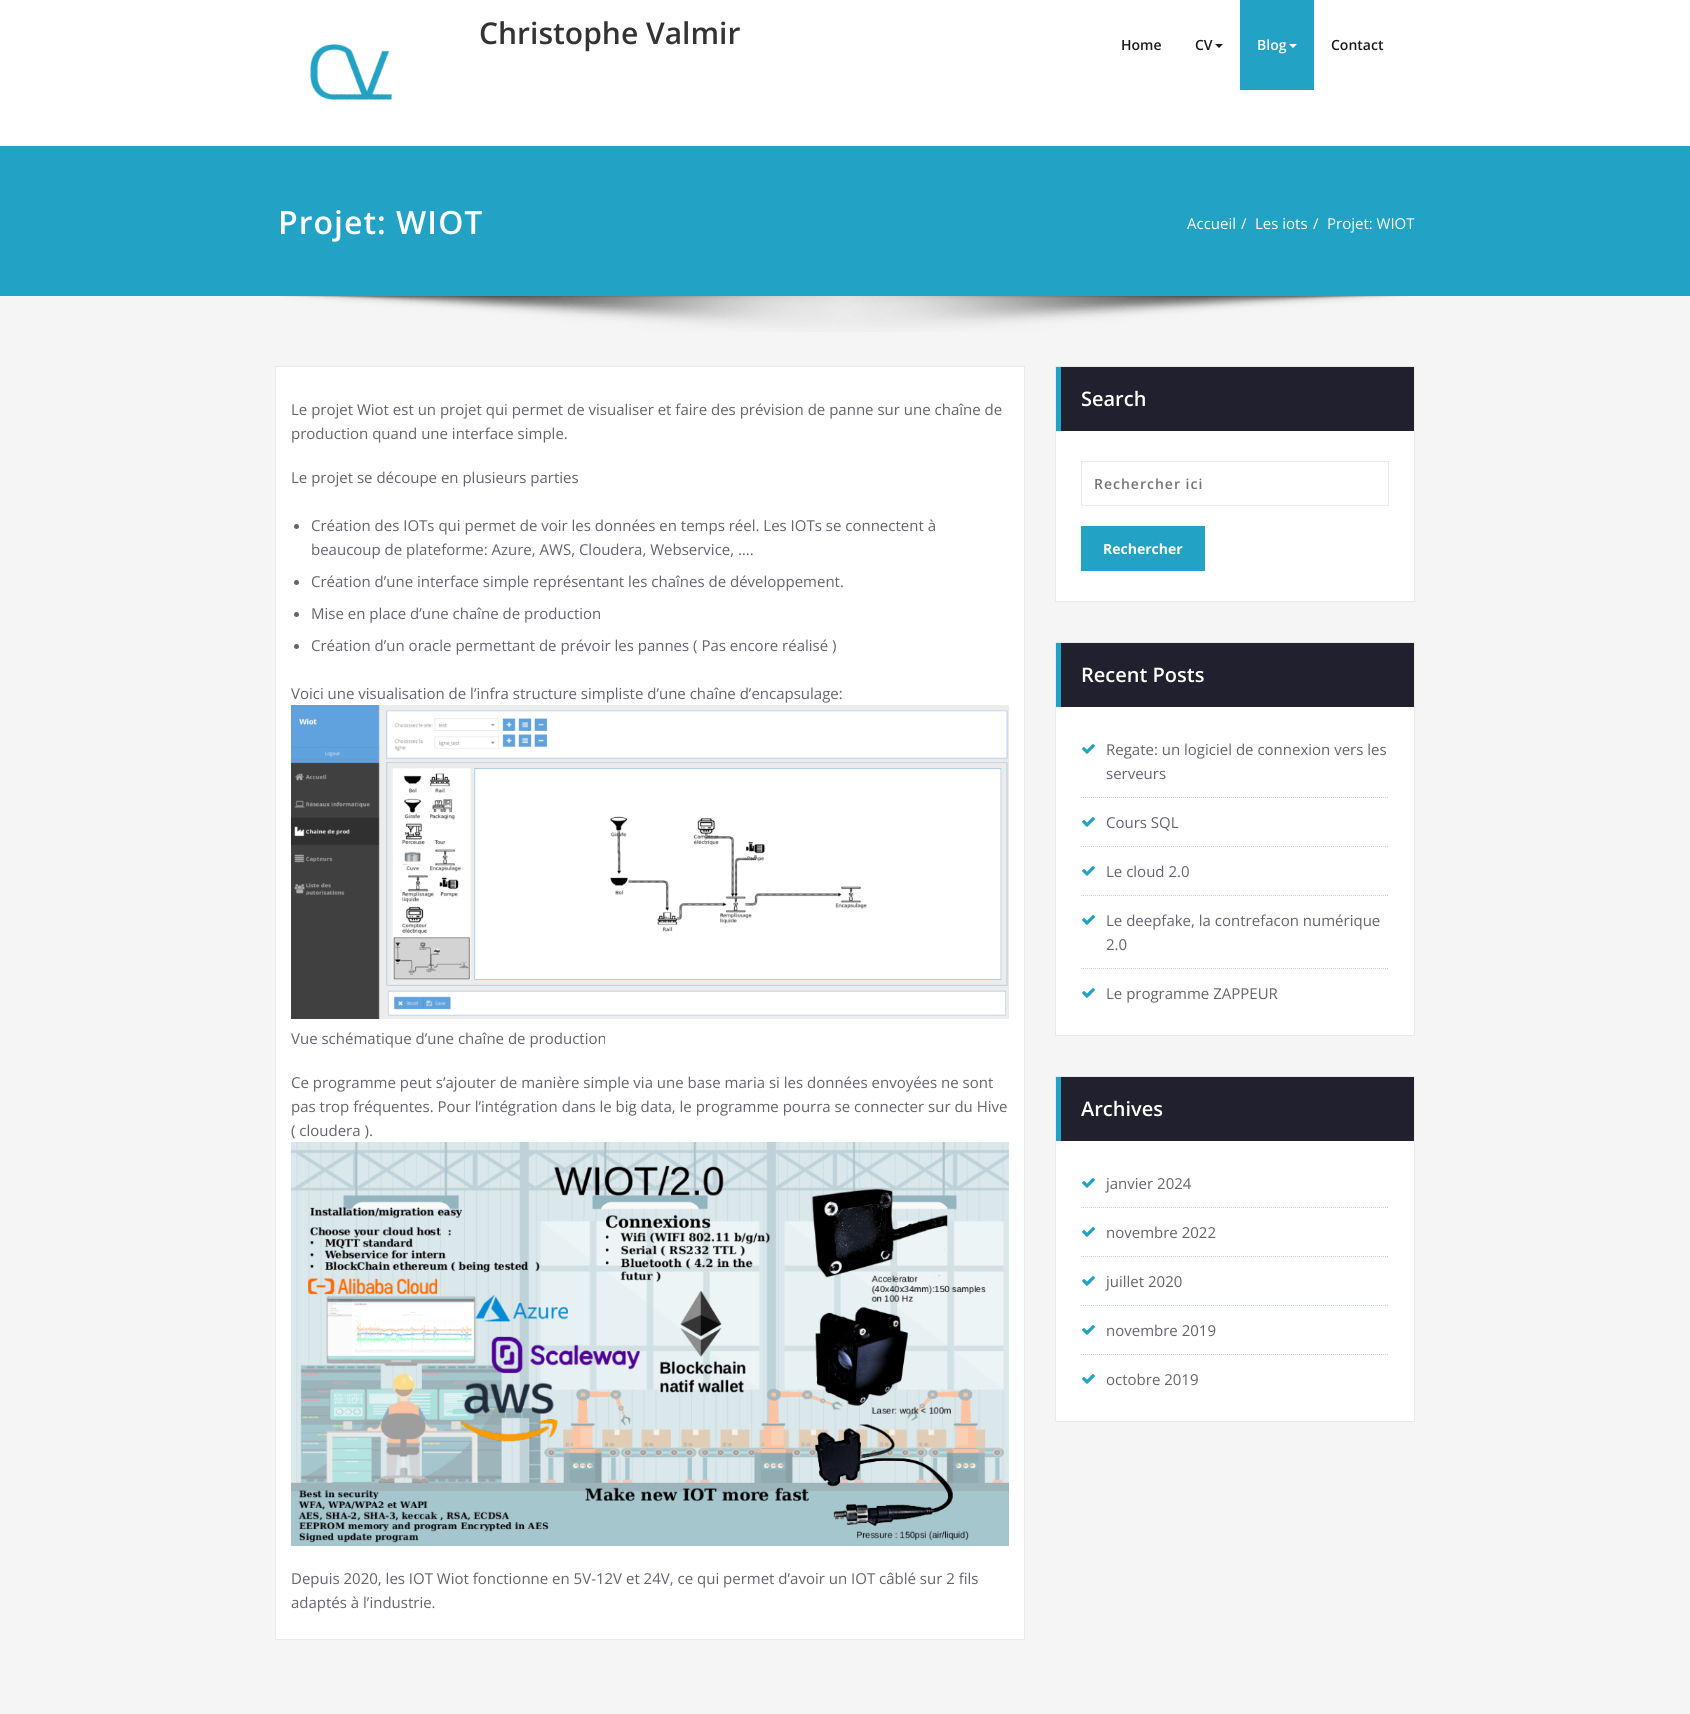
import math
import cairo



def draw_spaced(context, x, y, s, letter, word):
    context.move_to(x, y)
    for ch in s:
        context.show_text(ch)
        context.rel_move_to(letter + word * (ch == ' '), 0)


def draw_image(context, path, x, y, w, h):
    context.save()
    context.set_source_surface(cairo.ImageSurface.create_from_png(path), x, y)
    context.rectangle(x, y, w, h)
    context.fill()
    context.restore()


def draw(context):
    context.set_source_rgb(245 / 255, 245 / 255, 245 / 255)
    context.paint()
    context.set_source_rgb(1, 1, 1)
    context.rectangle(0, 0, 1690, 146)
    context.fill()
    draw_image(context, "images/1.png", 310, 44, 82, 56)
    context.set_source_rgb(27 / 255, 27 / 255, 27 / 255)
    context.new_path()
    context.move_to(1215, 44)
    context.line_to(1223, 44)
    context.line_to(1219, 48)
    context.close_path()
    context.fill()
    context.set_source_rgb(34 / 255, 162 / 255, 196 / 255)
    context.rectangle(1240, 0, 74, 90)
    context.fill()
    context.set_source_rgb(1, 1, 1)
    context.new_path()
    context.move_to(1289, 44)
    context.line_to(1297, 44)
    context.line_to(1293, 48)
    context.close_path()
    context.fill()
    context.set_source_rgb(34 / 255, 162 / 255, 196 / 255)
    context.rectangle(0, 146, 1690, 150)
    context.fill()
    draw_image(context, "images/2.png", 281, 296, 1127, 36)
    context.set_source_rgb(1, 1, 1)
    context.rectangle(275.5, 366.5, 749, 1273)
    context.fill_preserve()
    context.set_source_rgb(233 / 255, 233 / 255, 233 / 255)
    context.set_line_width(1)
    context.stroke()
    context.set_source_rgb(100 / 255, 100 / 255, 109 / 255)
    context.arc(296.5, 526.5, 2.5, 0, 2 * math.pi)
    context.fill()
    context.arc(296.5, 582.5, 2.5, 0, 2 * math.pi)
    context.fill()
    context.arc(296.5, 614.5, 2.5, 0, 2 * math.pi)
    context.fill()
    context.arc(296.5, 646.5, 2.5, 0, 2 * math.pi)
    context.fill()
    draw_image(context, "images/3.png", 291, 705, 718, 314)
    draw_image(context, "images/4.png", 291, 1142, 718, 404)
    context.set_source_rgb(1, 1, 1)
    context.rectangle(1056, 431, 358, 170)
    context.fill()
    context.rectangle(1055.5, 366.5, 359, 235)
    context.set_source_rgb(233 / 255, 233 / 255, 233 / 255)
    context.stroke()
    context.set_source_rgb(33 / 255, 32 / 255, 46 / 255)
    context.rectangle(1061, 367, 353, 64)
    context.fill()
    context.set_source_rgb(34 / 255, 162 / 255, 196 / 255)
    context.rectangle(1056, 367, 5, 64)
    context.fill()
    context.rectangle(1081.5, 461.5, 307, 44)
    context.set_source_rgb(233 / 255, 233 / 255, 233 / 255)
    context.stroke()
    context.set_source_rgb(34 / 255, 162 / 255, 196 / 255)
    context.rectangle(1081, 526, 124, 45)
    context.fill()
    context.set_source_rgb(1, 1, 1)
    context.rectangle(1056, 707, 358, 328)
    context.fill()
    context.rectangle(1055.5, 642.5, 359, 393)
    context.set_source_rgb(233 / 255, 233 / 255, 233 / 255)
    context.stroke()
    context.set_source_rgb(33 / 255, 32 / 255, 46 / 255)
    context.rectangle(1061, 643, 353, 64)
    context.fill()
    context.set_source_rgb(34 / 255, 162 / 255, 196 / 255)
    context.rectangle(1056, 643, 5, 64)
    context.fill()
    context.new_path()
    context.move_to(1081, 797.5)
    context.line_to(1389, 797.5)
    context.set_source_rgb(197 / 255, 209 / 255, 220 / 255)
    context.set_dash([1, 1])
    context.stroke()
    draw_image(context, "images/5.png", 1082, 744, 13, 10)
    context.new_path()
    context.move_to(1081, 846.5)
    context.line_to(1389, 846.5)
    context.stroke()
    draw_image(context, "images/5.png", 1082, 817, 13, 10)
    context.new_path()
    context.move_to(1081, 895.5)
    context.line_to(1389, 895.5)
    context.stroke()
    draw_image(context, "images/5.png", 1082, 866, 13, 10)
    context.new_path()
    context.move_to(1081, 968.5)
    context.line_to(1389, 968.5)
    context.stroke()
    draw_image(context, "images/5.png", 1082, 915, 13, 10)
    draw_image(context, "images/5.png", 1082, 988, 13, 10)
    context.set_source_rgb(1, 1, 1)
    context.rectangle(1056, 1141, 358, 280)
    context.fill()
    context.rectangle(1055.5, 1076.5, 359, 345)
    context.set_source_rgb(233 / 255, 233 / 255, 233 / 255)
    context.set_dash([])
    context.stroke()
    context.set_source_rgb(33 / 255, 32 / 255, 46 / 255)
    context.rectangle(1061, 1077, 353, 64)
    context.fill()
    context.set_source_rgb(34 / 255, 162 / 255, 196 / 255)
    context.rectangle(1056, 1077, 5, 64)
    context.fill()
    context.new_path()
    context.move_to(1081, 1207.5)
    context.line_to(1389, 1207.5)
    context.set_source_rgb(197 / 255, 209 / 255, 220 / 255)
    context.set_dash([1, 1])
    context.stroke()
    draw_image(context, "images/5.png", 1082, 1178, 13, 10)
    context.new_path()
    context.move_to(1081, 1256.5)
    context.line_to(1389, 1256.5)
    context.stroke()
    draw_image(context, "images/5.png", 1082, 1227, 13, 10)
    context.new_path()
    context.move_to(1081, 1305.5)
    context.line_to(1389, 1305.5)
    context.stroke()
    draw_image(context, "images/5.png", 1082, 1276, 13, 10)
    context.new_path()
    context.move_to(1081, 1354.5)
    context.line_to(1389, 1354.5)
    context.stroke()
    draw_image(context, "images/5.png", 1082, 1325, 13, 10)
    draw_image(context, "images/5.png", 1082, 1374, 13, 10)
    context.select_font_face("Open Sans SemiBold")
    context.set_font_size(30)
    context.set_source_rgb(51 / 255, 51 / 255, 51 / 255)
    context.move_to(479, 44)
    context.show_text("Christophe Valmir")
    context.set_font_size(14)
    context.set_source_rgb(27 / 255, 27 / 255, 27 / 255)
    context.move_to(1121, 50)
    context.show_text("Home")
    context.move_to(1195, 50)
    context.show_text("CV")
    context.set_source_rgb(1, 1, 1)
    context.move_to(1257, 50)
    context.show_text("Blog")
    context.set_source_rgb(27 / 255, 27 / 255, 27 / 255)
    context.move_to(1331, 50)
    context.show_text("Contact")
    context.set_font_size(32)
    context.set_source_rgb(1, 1, 1)
    draw_spaced(context, 278, 234, "Projet: WIOT", 1, 0)
    context.select_font_face("Open Sans")
    context.set_font_size(15)
    context.move_to(1187, 229)
    context.show_text("Accueil")
    context.move_to(1241, 229)
    context.show_text("/")
    context.move_to(1255, 229)
    context.show_text("Les iots")
    context.move_to(1313, 229)
    context.show_text("/")
    context.move_to(1327, 229)
    context.show_text("Projet: WIOT")
    context.set_source_rgb(100 / 255, 100 / 255, 109 / 255)
    context.move_to(291, 415)
    context.show_text("Le projet Wiot est un projet qui permet de visualiser et faire des prévision de panne sur une chaîne de")
    context.move_to(291, 439)
    context.show_text("production quand une interface simple.")
    context.move_to(291, 483)
    context.show_text("Le projet se découpe en plusieurs parties")
    context.move_to(311, 531)
    context.show_text("Création des IOTs qui permet de voir les données en temps réel. Les IOTs se connectent à")
    context.move_to(311, 555)
    context.show_text("beaucoup de plateforme: Azure, AWS, Cloudera, Webservice, ….")
    context.move_to(311, 587)
    context.show_text("Création d’une interface simple représentant les chaînes de développement.")
    context.move_to(311, 619)
    context.show_text("Mise en place d’une chaîne de production")
    context.move_to(311, 651)
    context.show_text("Création d’un oracle permettant de prévoir les pannes ( Pas encore réalisé )")
    context.move_to(291, 699)
    context.show_text("Voici une visualisation de l’infra structure simpliste d’une chaîne d’encapsulage:")
    context.move_to(291, 1044)
    context.show_text("Vue schématique d’une chaîne de production")
    context.move_to(291, 1088)
    context.show_text("Ce programme peut s’ajouter de manière simple via une base maria si les données envoyées ne sont")
    context.move_to(291, 1112)
    context.show_text("pas trop fréquentes. Pour l’intégration dans le big data, le programme pourra se connecter sur du Hive")
    context.move_to(291, 1136)
    context.show_text("( cloudera ).")
    context.move_to(291, 1584)
    context.show_text("Depuis 2020, les IOT Wiot fonctionne en 5V-12V et 24V, ce qui permet d’avoir un IOT câblé sur 2 fils")
    context.move_to(291, 1608)
    context.show_text("adaptés à l’industrie.")
    context.select_font_face("Open Sans SemiBold")
    context.set_font_size(20)
    context.set_source_rgb(1, 1, 1)
    context.move_to(1081, 406)
    context.show_text("Search")
    context.set_font_size(14)
    context.set_source_rgb(117 / 255, 117 / 255, 117 / 255)
    draw_spaced(context, 1094, 489, "Rechercher ici", 1, 0)
    context.select_font_face("Open Sans", cairo.FontSlant.NORMAL, cairo.FontWeight.BOLD)
    context.set_source_rgb(1, 1, 1)
    context.move_to(1103, 554)
    context.show_text("Rechercher")
    context.select_font_face("Open Sans SemiBold")
    context.set_font_size(20)
    context.move_to(1081, 682)
    context.show_text("Recent Posts")
    context.select_font_face("Open Sans")
    context.set_font_size(15)
    context.set_source_rgb(100 / 255, 100 / 255, 109 / 255)
    context.move_to(1106, 755)
    context.show_text("Regate: un logiciel de connexion vers les")
    context.move_to(1106, 779)
    context.show_text("serveurs")
    context.move_to(1106, 828)
    context.show_text("Cours SQL")
    context.move_to(1106, 877)
    context.show_text("Le cloud 2.0")
    context.move_to(1106, 926)
    context.show_text("Le deepfake, la contrefacon numérique")
    context.move_to(1106, 950)
    context.show_text("2.0")
    context.move_to(1106, 999)
    context.show_text("Le programme ZAPPEUR")
    context.select_font_face("Open Sans SemiBold")
    context.set_font_size(20)
    context.set_source_rgb(1, 1, 1)
    context.move_to(1081, 1116)
    context.show_text("Archives")
    context.select_font_face("Open Sans")
    context.set_font_size(15)
    context.set_source_rgb(100 / 255, 100 / 255, 109 / 255)
    context.move_to(1106, 1189)
    context.show_text("janvier 2024")
    context.move_to(1106, 1238)
    context.show_text("novembre 2022")
    context.move_to(1106, 1287)
    context.show_text("juillet 2020")
    context.move_to(1106, 1336)
    context.show_text("novembre 2019")
    context.move_to(1106, 1385)
    context.show_text("octobre 2019")


surface = cairo.ImageSurface(cairo.Format.RGB24, 1690, 1714)
context = cairo.Context(surface)
options = cairo.FontOptions()
options.set_hint_metrics(cairo.HintMetrics.OFF)
options.set_hint_style(cairo.HintStyle.NONE)
context.set_font_options(options)
context.set_miter_limit(4)
draw(context)
surface.write_to_png("out.png")
